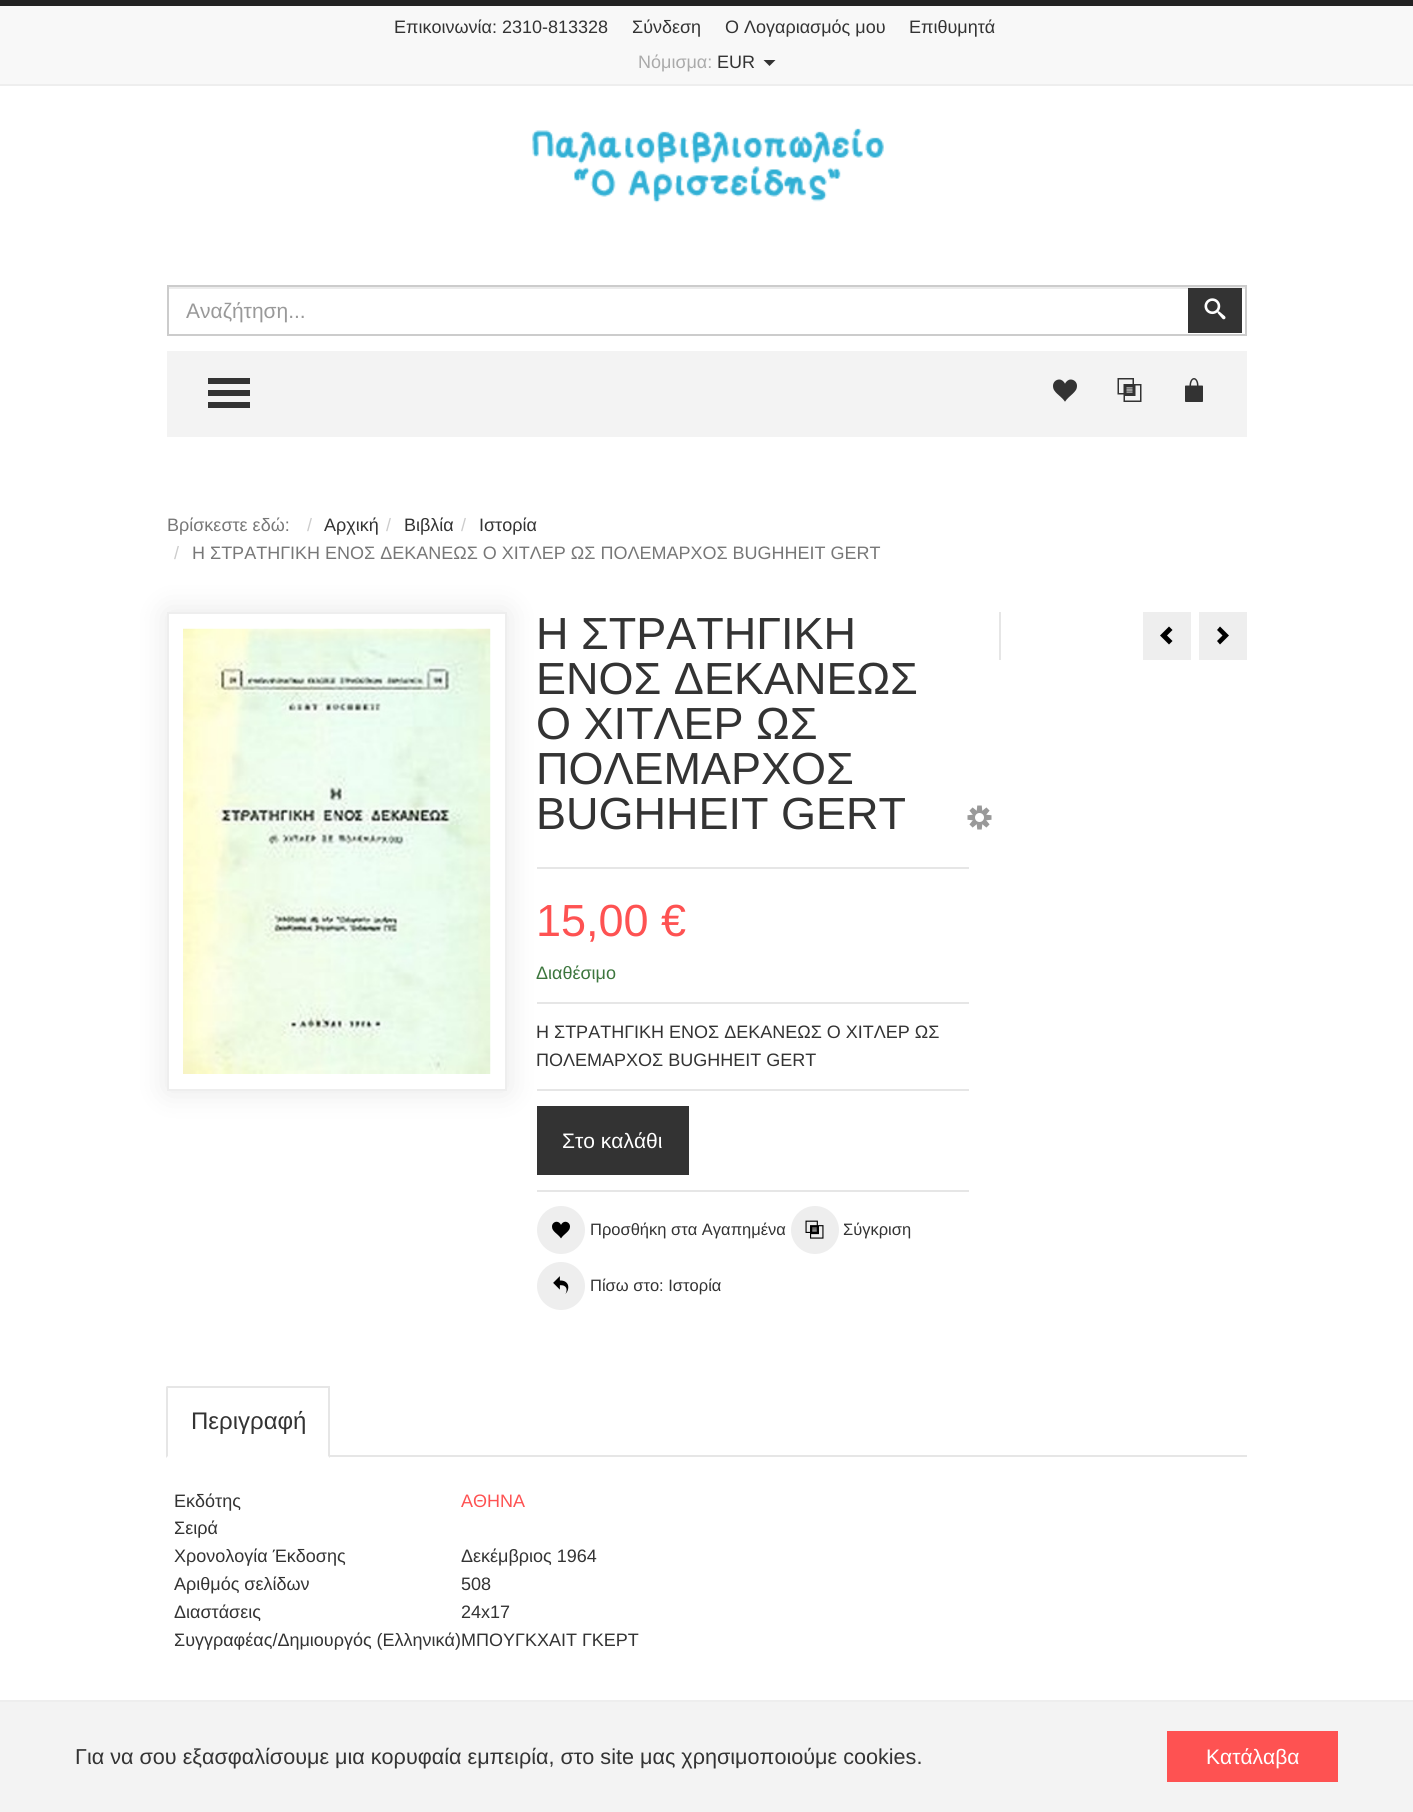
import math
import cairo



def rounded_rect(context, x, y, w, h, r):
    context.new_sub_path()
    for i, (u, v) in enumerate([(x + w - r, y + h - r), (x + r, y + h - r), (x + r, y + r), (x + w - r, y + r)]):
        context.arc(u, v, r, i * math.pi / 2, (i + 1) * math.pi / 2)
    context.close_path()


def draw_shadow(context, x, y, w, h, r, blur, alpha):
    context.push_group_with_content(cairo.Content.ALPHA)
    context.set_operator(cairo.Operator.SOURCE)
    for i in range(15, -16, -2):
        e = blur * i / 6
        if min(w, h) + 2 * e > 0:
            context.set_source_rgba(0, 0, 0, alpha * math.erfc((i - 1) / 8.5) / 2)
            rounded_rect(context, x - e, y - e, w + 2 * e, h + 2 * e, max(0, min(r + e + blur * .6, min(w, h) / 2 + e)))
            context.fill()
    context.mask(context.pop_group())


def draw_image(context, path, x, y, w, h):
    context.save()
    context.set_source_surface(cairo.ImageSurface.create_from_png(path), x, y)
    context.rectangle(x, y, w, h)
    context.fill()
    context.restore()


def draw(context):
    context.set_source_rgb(1, 1, 1)
    context.paint()
    context.set_source_rgb(248 / 255, 248 / 255, 248 / 255)
    context.rectangle(0, 6, 1413, 78)
    context.fill()
    context.set_source_rgb(34 / 255, 34 / 255, 34 / 255)
    context.rectangle(0, 0, 1413, 6)
    context.fill()
    context.set_source_rgb(238 / 255, 238 / 255, 238 / 255)
    context.rectangle(0, 84, 1413, 2)
    context.fill()
    context.set_source_rgb(51 / 255, 51 / 255, 51 / 255)
    context.new_path()
    context.move_to(763.5, 60)
    context.line_to(775.5, 60)
    context.line_to(769.5, 66)
    context.close_path()
    context.fill()
    draw_image(context, "images/1.png", 532, 128, 352, 75)
    context.set_source_rgb(236 / 255, 236 / 255, 236 / 255)
    context.rectangle(168, 287, 1077, 2)
    context.fill()
    context.rectangle(168, 286, 1078, 49)
    context.set_source_rgb(204 / 255, 204 / 255, 204 / 255)
    context.stroke()
    context.set_source_rgb(51 / 255, 51 / 255, 51 / 255)
    context.rectangle(1188, 288, 54, 45)
    context.fill()
    draw_image(context, "images/2.png", 1204, 298, 22, 22)
    context.set_source_rgb(243 / 255, 243 / 255, 243 / 255)
    context.rectangle(167, 351, 1080, 86)
    context.fill()
    context.set_source_rgb(51 / 255, 51 / 255, 51 / 255)
    context.new_path()
    context.move_to(208, 378)
    context.line_to(250, 378)
    context.line_to(250, 384)
    context.line_to(208, 384)
    context.close_path()
    context.move_to(208, 390)
    context.line_to(250, 390)
    context.line_to(250, 396)
    context.line_to(208, 396)
    context.close_path()
    context.move_to(208, 402)
    context.line_to(250, 402)
    context.line_to(250, 408)
    context.line_to(208, 408)
    context.close_path()
    context.fill()
    draw_image(context, "images/3.png", 1053, 379, 24, 23)
    draw_image(context, "images/4.png", 1117, 378, 25, 24)
    draw_image(context, "images/5.png", 1185, 378, 18, 24)
    context.set_source_rgb(0, 0, 0)
    draw_shadow(context, 167, 612, 340, 479, 0, 15, 0.1)
    context.set_source_rgb(1, 1, 1)
    context.rectangle(168, 613, 338, 477)
    context.fill_preserve()
    context.set_source_rgb(238 / 255, 238 / 255, 238 / 255)
    context.stroke()
    draw_image(context, "images/6.png", 183, 628, 308, 446)
    draw_image(context, "images/7.png", 967, 805, 25, 25)
    context.set_source_rgb(230 / 255, 230 / 255, 230 / 255)
    context.rectangle(537, 867, 432, 2)
    context.fill()
    context.rectangle(537, 1002, 432, 2)
    context.fill()
    context.rectangle(537, 1089, 432, 2)
    context.fill()
    context.rectangle(537, 1190, 432, 2)
    context.fill()
    context.set_source_rgb(51 / 255, 51 / 255, 51 / 255)
    context.rectangle(537, 1106, 152, 69)
    context.fill()
    context.set_source_rgb(238 / 255, 238 / 255, 238 / 255)
    context.arc(561, 1230, 24, 0, 2 * math.pi)
    context.fill()
    draw_image(context, "images/8.png", 552, 1221, 18, 18)
    context.arc(815, 1230, 24, 0, 2 * math.pi)
    context.fill()
    draw_image(context, "images/9.png", 805, 1220, 19, 19)
    context.arc(561, 1286, 24, 0, 2 * math.pi)
    context.fill()
    draw_image(context, "images/10.png", 553, 1276, 16, 18)
    context.set_source_rgb(230 / 255, 230 / 255, 230 / 255)
    context.rectangle(999, 612, 2, 48)
    context.fill()
    context.set_source_rgb(238 / 255, 238 / 255, 238 / 255)
    context.rectangle(1143, 612, 48, 48)
    context.fill()
    context.set_source_rgb(0, 0, 0)
    context.new_path()
    context.move_to(1169, 644.5)
    context.line_to(1172.5, 641)
    context.line_to(1167, 635.5)
    context.line_to(1172.5, 630)
    context.line_to(1169, 626.5)
    context.line_to(1160, 635.5)
    context.close_path()
    context.fill()
    context.set_source_rgb(238 / 255, 238 / 255, 238 / 255)
    context.rectangle(1199, 612, 48, 48)
    context.fill()
    context.set_source_rgb(0, 0, 0)
    context.new_path()
    context.move_to(1220, 626.5)
    context.line_to(1217, 630)
    context.line_to(1222.5, 635.5)
    context.line_to(1217, 641)
    context.line_to(1220, 644.5)
    context.line_to(1229, 635.5)
    context.close_path()
    context.fill()
    context.set_source_rgb(230 / 255, 230 / 255, 230 / 255)
    context.rectangle(167, 1386, 163, 2)
    context.fill()
    context.new_path()
    context.move_to(330, 1386)
    context.line_to(330, 1458)
    context.line_to(328, 1456)
    context.line_to(328, 1388)
    context.close_path()
    context.fill()
    context.new_path()
    context.move_to(166, 1458)
    context.line_to(166, 1386)
    context.line_to(168, 1388)
    context.line_to(168, 1456)
    context.close_path()
    context.fill()
    context.rectangle(330, 1455, 917, 2)
    context.fill()
    context.set_source_rgb(243 / 255, 243 / 255, 243 / 255)
    context.rectangle(0, 1702, 1413, 110)
    context.fill()
    context.set_source_rgb(238 / 255, 238 / 255, 238 / 255)
    context.rectangle(0, 1700, 1413, 2)
    context.fill()
    context.set_source_rgb(254 / 255, 82 / 255, 82 / 255)
    context.rectangle(1167, 1731, 171, 51)
    context.fill()
    context.select_font_face("Liberation Sans")
    context.set_font_size(18)
    context.set_source_rgb(51 / 255, 51 / 255, 51 / 255)
    context.move_to(394, 33)
    context.show_text("Επικοινωνία: 2310-813328")
    context.move_to(632, 33)
    context.show_text("Σύνδεση")
    context.move_to(725, 33)
    context.show_text("Ο Λογαριασμός μου")
    context.move_to(909, 33)
    context.show_text("Επιθυμητά")
    context.set_source_rgb(170 / 255, 170 / 255, 170 / 255)
    context.move_to(638, 68)
    context.show_text("Νόμισμα:")
    context.set_source_rgb(51 / 255, 51 / 255, 51 / 255)
    context.move_to(717, 68)
    context.show_text("EUR")
    context.set_font_size(21)
    context.set_source_rgb(153 / 255, 153 / 255, 153 / 255)
    context.move_to(186, 318)
    context.show_text("Αναζήτηση...")
    context.set_font_size(18)
    context.set_source_rgb(119 / 255, 119 / 255, 119 / 255)
    context.move_to(167, 531)
    context.show_text("Βρίσκεστε εδώ:")
    context.set_source_rgb(204 / 255, 204 / 255, 204 / 255)
    context.move_to(307, 531)
    context.show_text("/")
    context.set_source_rgb(51 / 255, 51 / 255, 51 / 255)
    context.move_to(324, 531)
    context.show_text("Αρχική")
    context.set_source_rgb(204 / 255, 204 / 255, 204 / 255)
    context.move_to(386, 531)
    context.show_text("/")
    context.set_source_rgb(51 / 255, 51 / 255, 51 / 255)
    context.move_to(404, 531)
    context.show_text("Βιβλία")
    context.set_source_rgb(204 / 255, 204 / 255, 204 / 255)
    context.move_to(461, 531)
    context.show_text("/")
    context.set_source_rgb(51 / 255, 51 / 255, 51 / 255)
    context.move_to(479, 531)
    context.show_text("Ιστορία")
    context.set_source_rgb(204 / 255, 204 / 255, 204 / 255)
    context.move_to(174, 559)
    context.show_text("/")
    context.set_source_rgb(119 / 255, 119 / 255, 119 / 255)
    context.move_to(192, 559)
    context.show_text("Η ΣΤΡΑΤΗΓΙΚΗ ΕΝΟΣ ΔΕΚΑΝΕΩΣ Ο ΧΙΤΛΕΡ ΩΣ ΠΟΛΕΜΑΡΧΟΣ BUGHHEIT GERT")
    context.set_font_size(45)
    context.set_source_rgb(51 / 255, 51 / 255, 51 / 255)
    context.move_to(536, 649)
    context.show_text("Η ΣΤΡΑΤΗΓΙΚΗ")
    context.move_to(536, 694)
    context.show_text("ΕΝΟΣ ΔΕΚΑΝΕΩΣ")
    context.move_to(536, 739)
    context.show_text("Ο ΧΙΤΛΕΡ ΩΣ")
    context.move_to(536, 784)
    context.show_text("ΠΟΛΕΜΑΡΧΟΣ")
    context.move_to(536, 829)
    context.show_text("BUGHHEIT GERT")
    context.set_source_rgb(254 / 255, 82 / 255, 82 / 255)
    context.move_to(536, 936)
    context.show_text("15,00 €")
    context.set_font_size(18)
    context.set_source_rgb(60 / 255, 118 / 255, 61 / 255)
    context.move_to(536, 979)
    context.show_text("Διαθέσιμο")
    context.set_source_rgb(51 / 255, 51 / 255, 51 / 255)
    context.move_to(536, 1038)
    context.show_text("Η ΣΤΡΑΤΗΓΙΚΗ ΕΝΟΣ ΔΕΚΑΝΕΩΣ Ο ΧΙΤΛΕΡ ΩΣ")
    context.move_to(536, 1066)
    context.show_text("ΠΟΛΕΜΑΡΧΟΣ BUGHHEIT GERT")
    context.set_font_size(21)
    context.set_source_rgb(1, 1, 1)
    context.move_to(562, 1148)
    context.show_text("Στο καλάθι")
    context.set_font_size(16.5)
    context.set_source_rgb(51 / 255, 51 / 255, 51 / 255)
    context.move_to(590, 1235)
    context.show_text("Προσθήκη στα Αγαπημένα")
    context.move_to(843, 1235)
    context.show_text("Σύγκριση")
    context.move_to(590, 1291)
    context.show_text("Πίσω στο: Ιστορία")
    context.set_font_size(24)
    context.move_to(191, 1429)
    context.show_text("Περιγραφή")
    context.set_font_size(18)
    context.move_to(174, 1507)
    context.show_text("Εκδότης")
    context.set_source_rgb(254 / 255, 82 / 255, 82 / 255)
    context.move_to(461, 1507)
    context.show_text("ΑΘΗΝΑ")
    context.set_source_rgb(51 / 255, 51 / 255, 51 / 255)
    context.move_to(174, 1534)
    context.show_text("Σειρά")
    context.move_to(174, 1562)
    context.show_text("Χρονολογία Έκδοσης")
    context.move_to(461, 1562)
    context.show_text("Δεκέμβριος 1964")
    context.move_to(174, 1590)
    context.show_text("Αριθμός σελίδων")
    context.move_to(461, 1590)
    context.show_text("508")
    context.move_to(174, 1618)
    context.show_text("Διαστάσεις")
    context.move_to(461, 1618)
    context.show_text("24x17")
    context.move_to(174, 1646)
    context.show_text("Συγγραφέας/Δημιουργός (Ελληνικά)ΜΠΟΥΓΚΧΑΙΤ ΓΚΕΡΤ")
    context.set_font_size(21.6)
    context.move_to(75, 1764)
    context.show_text("Για να σου εξασφαλίσουμε μια κορυφαία εμπειρία, στο site μας χρησιμοποιούμε cookies.")
    context.set_font_size(21)
    context.set_source_rgb(1, 1, 1)
    context.move_to(1206, 1764)
    context.show_text("Κατάλαβα")


surface = cairo.ImageSurface(cairo.Format.RGB24, 1413, 1812)
context = cairo.Context(surface)
options = cairo.FontOptions()
options.set_hint_metrics(cairo.HintMetrics.OFF)
options.set_hint_style(cairo.HintStyle.NONE)
context.set_font_options(options)
context.set_miter_limit(4)
draw(context)
surface.write_to_png("out.png")
